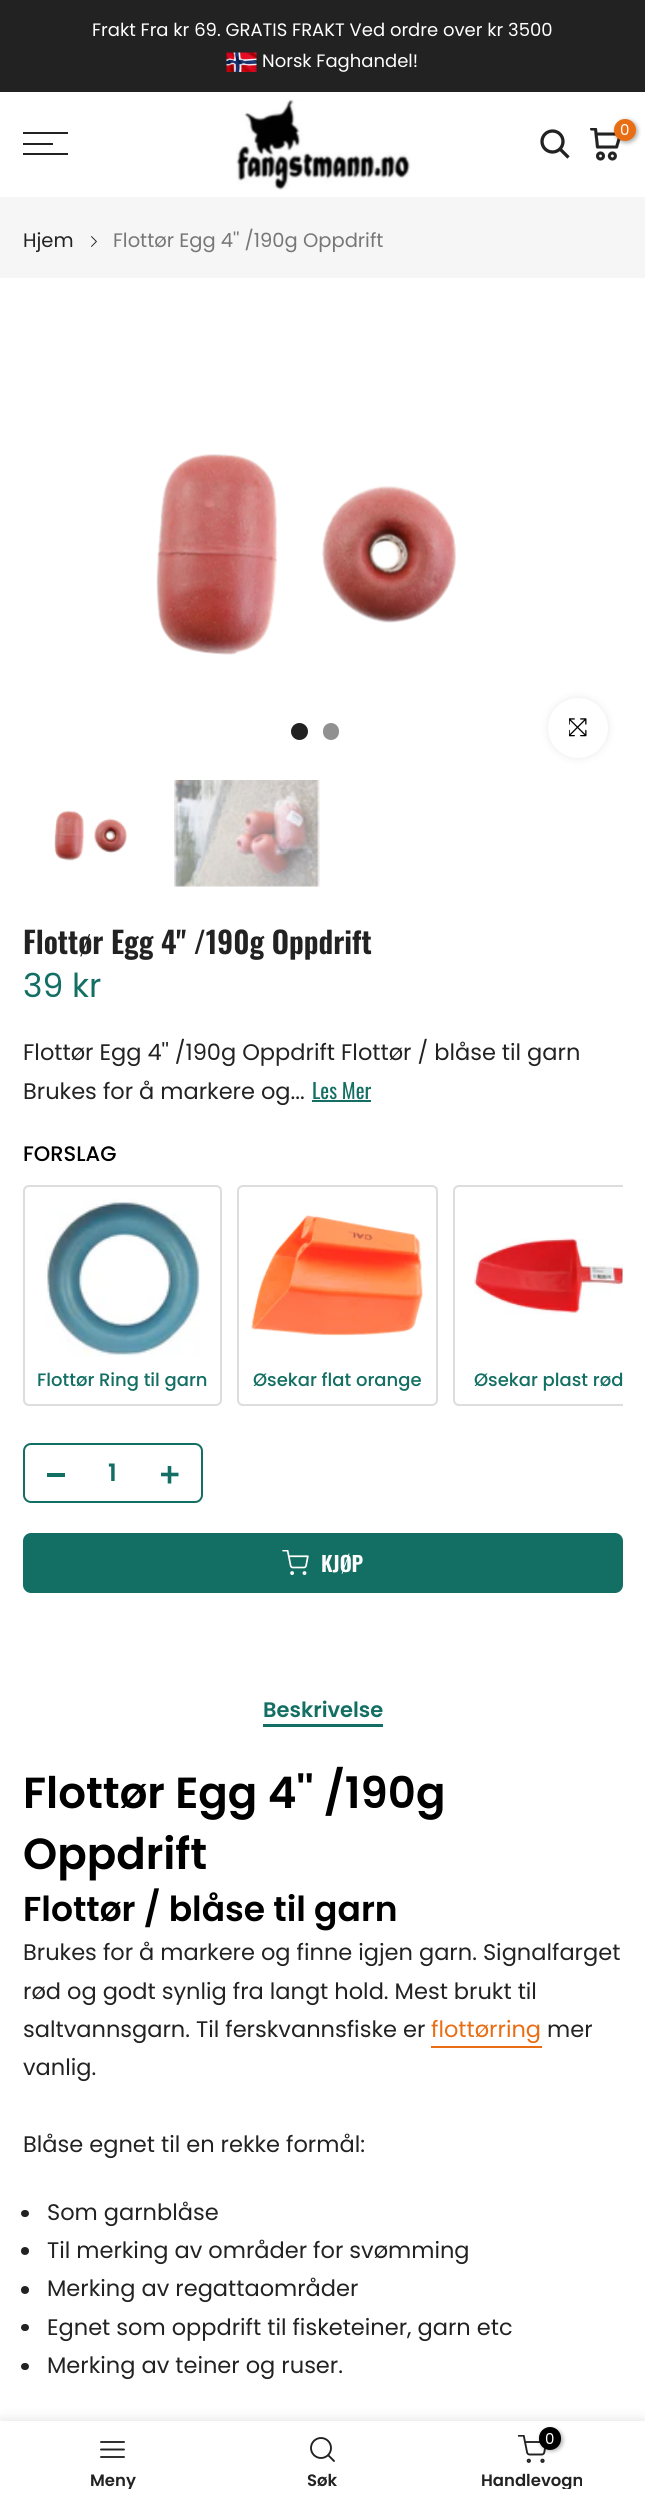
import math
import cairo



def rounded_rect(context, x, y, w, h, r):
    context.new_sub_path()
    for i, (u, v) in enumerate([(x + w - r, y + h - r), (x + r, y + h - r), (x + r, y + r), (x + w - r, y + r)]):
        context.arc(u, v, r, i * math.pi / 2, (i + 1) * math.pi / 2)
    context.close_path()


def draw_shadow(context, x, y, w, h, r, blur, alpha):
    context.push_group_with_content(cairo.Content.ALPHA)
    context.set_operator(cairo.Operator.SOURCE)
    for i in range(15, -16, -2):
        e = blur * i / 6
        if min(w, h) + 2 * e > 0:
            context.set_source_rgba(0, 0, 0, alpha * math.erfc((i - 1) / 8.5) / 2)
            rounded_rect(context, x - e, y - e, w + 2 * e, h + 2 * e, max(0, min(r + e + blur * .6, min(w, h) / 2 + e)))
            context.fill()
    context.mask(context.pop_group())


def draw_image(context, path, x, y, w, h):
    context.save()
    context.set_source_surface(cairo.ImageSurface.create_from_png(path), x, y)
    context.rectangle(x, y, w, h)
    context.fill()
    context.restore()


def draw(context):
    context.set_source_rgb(1, 1, 1)
    context.paint()
    context.set_source_rgb(34 / 255, 34 / 255, 34 / 255)
    context.rectangle(0, 0, 645, 92)
    context.fill()
    draw_image(context, "images/1.png", 226, 52, 31, 20)
    draw_image(context, "images/2.png", 236, 99, 175, 91)
    context.arc(552.5, 141.5, 10.5, 0, 2 * math.pi)
    context.set_line_width(3.3)
    context.stroke()
    context.new_path()
    context.move_to(560, 149)
    context.line_to(568.5, 157.5)
    context.stroke()
    draw_image(context, "images/3.png", 590, 128, 31, 33)
    context.set_source_rgb(0, 0, 0)
    draw_shadow(context, 615, 120, 23, 23, 11.5, 2, 0.3)
    context.set_source_rgb(233 / 255, 109 / 255, 18 / 255)
    context.arc(625, 130, 11, 0, 2 * math.pi)
    context.fill()
    context.set_source_rgb(34 / 255, 34 / 255, 34 / 255)
    context.rectangle(23, 132, 45, 2)
    context.fill()
    context.rectangle(23, 143, 30, 2)
    context.fill()
    context.rectangle(23, 153, 45, 2)
    context.fill()
    context.set_source_rgb(246 / 255, 246 / 255, 246 / 255)
    context.rectangle(0, 197, 645, 81)
    context.fill()
    draw_image(context, "images/4.png", 91, 236, 6, 11)
    draw_image(context, "images/5.png", 156, 454, 300, 201)
    context.set_source_rgb(34 / 255, 34 / 255, 34 / 255)
    context.arc(299.5, 731.5, 8.5, 0, 2 * math.pi)
    context.fill()
    context.set_source_rgb(145 / 255, 145 / 255, 145 / 255)
    rounded_rect(context, 323, 723, 16, 17, 8)
    context.fill()
    context.set_source_rgb(0, 0, 0)
    draw_shadow(context, 548, 698, 60, 60, 30, 4, 0.09)
    context.set_source_rgb(1, 1, 1)
    context.arc(578, 728, 30, 0, 2 * math.pi)
    context.fill()
    draw_image(context, "images/6.png", 569, 718, 18, 19)
    draw_image(context, "images/7.png", 54, 810, 73, 51)
    draw_image(context, "images/8.png", 174, 780, 146, 107)
    context.set_source_rgb(19 / 255, 111 / 255, 99 / 255)
    context.rectangle(312, 1100, 59, 2)
    context.fill()
    rounded_rect(context, 24, 1186, 197, 219, 5)
    context.set_source_rgb(221 / 255, 221 / 255, 221 / 255)
    context.set_line_width(2)
    context.stroke()
    draw_image(context, "images/9.png", 45, 1199, 155, 158)
    rounded_rect(context, 238, 1186, 199, 219, 5)
    context.stroke()
    draw_image(context, "images/10.png", 251, 1214, 172, 122)
    context.save()
    context.rectangle(23, 1185, 600, 221)
    context.clip()
    rounded_rect(context, 454, 1186, 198, 219, 5)
    context.stroke()
    context.restore()
    draw_image(context, "images/11.png", 473, 1238, 150, 76)
    rounded_rect(context, 24, 1444, 178, 58, 7)
    context.set_source_rgb(19 / 255, 111 / 255, 99 / 255)
    context.stroke()
    context.rectangle(47, 1473, 18, 4)
    context.fill()
    draw_image(context, "images/12.png", 161, 1466, 18, 18)
    rounded_rect(context, 23, 1533, 600, 60, 8)
    context.fill()
    draw_image(context, "images/13.png", 282, 1550, 27, 25)
    context.rectangle(263, 1724, 120, 3)
    context.fill()
    context.set_source_rgb(233 / 255, 109 / 255, 18 / 255)
    context.rectangle(431, 2046, 111, 2)
    context.fill()
    context.set_source_rgb(34 / 255, 34 / 255, 34 / 255)
    rounded_rect(context, 21, 2210, 8, 7, 3.5)
    context.fill()
    context.arc(25, 2251, 4, 0, 2 * math.pi)
    context.fill()
    context.arc(25, 2290, 4, 0, 2 * math.pi)
    context.fill()
    rounded_rect(context, 21, 2324, 8, 7, 3.5)
    context.fill()
    rounded_rect(context, 21, 2363, 8, 7, 3.5)
    context.fill()
    context.set_source_rgb(0, 0, 0)
    draw_shadow(context, 0, 2421, 645, 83, 0, 7, 0.12)
    context.set_source_rgb(1, 1, 1)
    context.rectangle(0, 2421, 645, 82)
    context.fill()
    context.new_path()
    context.move_to(101, 2449.5)
    context.line_to(124, 2449.5)
    context.move_to(101, 2442)
    context.line_to(124, 2442)
    context.move_to(101, 2457)
    context.line_to(124, 2457)
    context.set_source_rgb(34 / 255, 34 / 255, 34 / 255)
    context.set_line_width(1.9)
    context.set_line_cap(cairo.LineCap.ROUND)
    context.set_line_join(cairo.LineJoin.ROUND)
    context.stroke()
    context.arc(321, 2448, 10, 0, 2 * math.pi)
    context.set_line_cap(cairo.LineCap.BUTT)
    context.set_line_join(cairo.LineJoin.MITER)
    context.stroke()
    context.new_path()
    context.move_to(334, 2461)
    context.line_to(328.5, 2455.5)
    context.set_line_cap(cairo.LineCap.ROUND)
    context.set_line_join(cairo.LineJoin.ROUND)
    context.stroke()
    draw_image(context, "images/14.png", 518, 2435, 28, 28)
    context.set_source_rgb(0, 0, 0)
    draw_shadow(context, 540, 2429, 23, 22, 11, 2, 0.3)
    context.set_source_rgb(0, 0, 0)
    rounded_rect(context, 539, 2427, 22, 23, 11)
    context.fill()
    context.select_font_face("Poppins")
    context.set_font_size(18)
    context.set_source_rgb(1, 1, 1)
    context.move_to(92, 36)
    context.show_text("Frakt Fra kr 69. GRATIS FRAKT Ved ordre over kr 3500")
    context.move_to(262, 67)
    context.show_text("Norsk Faghandel!")
    context.set_font_size(15)
    context.move_to(620, 135)
    context.show_text("0")
    context.set_font_size(19.5)
    context.set_source_rgb(34 / 255, 34 / 255, 34 / 255)
    context.move_to(23, 247)
    context.show_text("Hjem")
    context.set_source_rgb(119 / 255, 119 / 255, 119 / 255)
    context.move_to(113, 247)
    context.show_text("Flottør Egg 4'' /190g Oppdrift")
    context.select_font_face("Oswald SemiBold")
    context.set_font_size(30)
    context.set_source_rgb(34 / 255, 34 / 255, 34 / 255)
    context.move_to(23, 954)
    context.show_text("Flottør Egg 4'' /190g Oppdrift")
    context.select_font_face("Poppins")
    context.set_font_size(33)
    context.set_source_rgb(19 / 255, 111 / 255, 99 / 255)
    context.move_to(23, 997)
    context.show_text("39 kr")
    context.set_font_size(22.5)
    context.set_source_rgb(34 / 255, 34 / 255, 34 / 255)
    context.move_to(23, 1060)
    context.show_text("Flottør Egg 4'' /190g Oppdrift Flottør / blåse til garn")
    context.move_to(23, 1099)
    context.show_text("Brukes for å markere og...")
    context.select_font_face("Oswald")
    context.set_font_size(21)
    context.set_source_rgb(19 / 255, 111 / 255, 99 / 255)
    context.move_to(312, 1099)
    context.show_text("Les Mer")
    context.select_font_face("Poppins Medium")
    context.set_source_rgb(0, 0, 0)
    context.move_to(23, 1161)
    context.show_text("FORSLAG")
    context.set_font_size(18)
    context.set_source_rgb(19 / 255, 111 / 255, 99 / 255)
    context.move_to(37, 1386)
    context.show_text("Flottør Ring til garn")
    context.move_to(253, 1386)
    context.show_text("Øsekar flat orange")
    context.move_to(474, 1386)
    context.show_text("Øsekar plast rød")
    context.select_font_face("Poppins SemiBold")
    context.set_font_size(24)
    context.move_to(108, 1481)
    context.show_text("1")
    context.select_font_face("Oswald SemiBold")
    context.set_font_size(21)
    context.set_source_rgb(1, 1, 1)
    context.move_to(321, 1572)
    context.show_text("KJØP")
    context.select_font_face("Poppins SemiBold")
    context.set_source_rgb(19 / 255, 111 / 255, 99 / 255)
    context.move_to(263, 1717)
    context.show_text("Beskrivelse")
    context.set_font_size(43.5)
    context.set_source_rgb(0, 0, 0)
    context.move_to(23, 1808)
    context.show_text("Flottør Egg 4'' /190g")
    context.move_to(23, 1869)
    context.show_text("Oppdrift")
    context.set_font_size(34.5)
    context.move_to(23, 1921)
    context.show_text("Flottør / blåse til garn")
    context.select_font_face("Poppins")
    context.set_font_size(22.5)
    context.set_source_rgb(34 / 255, 34 / 255, 34 / 255)
    context.move_to(23, 1960)
    context.show_text("Brukes for å markere og finne igjen garn. Signalfarget")
    context.move_to(23, 1999)
    context.show_text("rød og godt synlig fra langt hold. Mest brukt til")
    context.move_to(23, 2037)
    context.show_text("saltvannsgarn. Til ferskvannsfiske er")
    context.set_source_rgb(233 / 255, 109 / 255, 18 / 255)
    context.move_to(431, 2037)
    context.show_text("flottørring")
    context.set_source_rgb(34 / 255, 34 / 255, 34 / 255)
    context.move_to(547, 2037)
    context.show_text("mer")
    context.move_to(23, 2075)
    context.show_text("vanlig.")
    context.move_to(23, 2152)
    context.show_text("Blåse egnet til en rekke formål:")
    context.move_to(47, 2220)
    context.show_text("Som garnblåse")
    context.move_to(47, 2258)
    context.show_text("Til merking av områder for svømming")
    context.move_to(47, 2296)
    context.show_text("Merking av regattaområder")
    context.move_to(47, 2335)
    context.show_text("Egnet som oppdrift til fisketeiner, garn etc")
    context.move_to(47, 2373)
    context.show_text("Merking av teiner og ruser.")
    context.save()
    context.rectangle(23, 2472, 180, 17)
    context.clip()
    context.select_font_face("Poppins SemiBold")
    context.set_font_size(16.5)
    context.move_to(90, 2486)
    context.show_text("Meny")
    context.restore()
    context.select_font_face("Poppins SemiBold")
    context.set_font_size(16.5)
    context.move_to(307, 2486)
    context.show_text("Søk")
    context.select_font_face("Poppins")
    context.set_font_size(15)
    context.set_source_rgb(1, 1, 1)
    context.move_to(545, 2444)
    context.show_text("0")
    context.save()
    context.rectangle(443, 2472, 180, 17)
    context.clip()
    context.select_font_face("Poppins SemiBold")
    context.set_font_size(16.5)
    context.set_source_rgb(34 / 255, 34 / 255, 34 / 255)
    context.move_to(481, 2486)
    context.show_text("Handlevogn")
    context.restore()


surface = cairo.ImageSurface(cairo.Format.RGB24, 645, 2503)
context = cairo.Context(surface)
options = cairo.FontOptions()
options.set_hint_metrics(cairo.HintMetrics.OFF)
options.set_hint_style(cairo.HintStyle.NONE)
context.set_font_options(options)
context.set_miter_limit(4)
draw(context)
surface.write_to_png("out.png")
